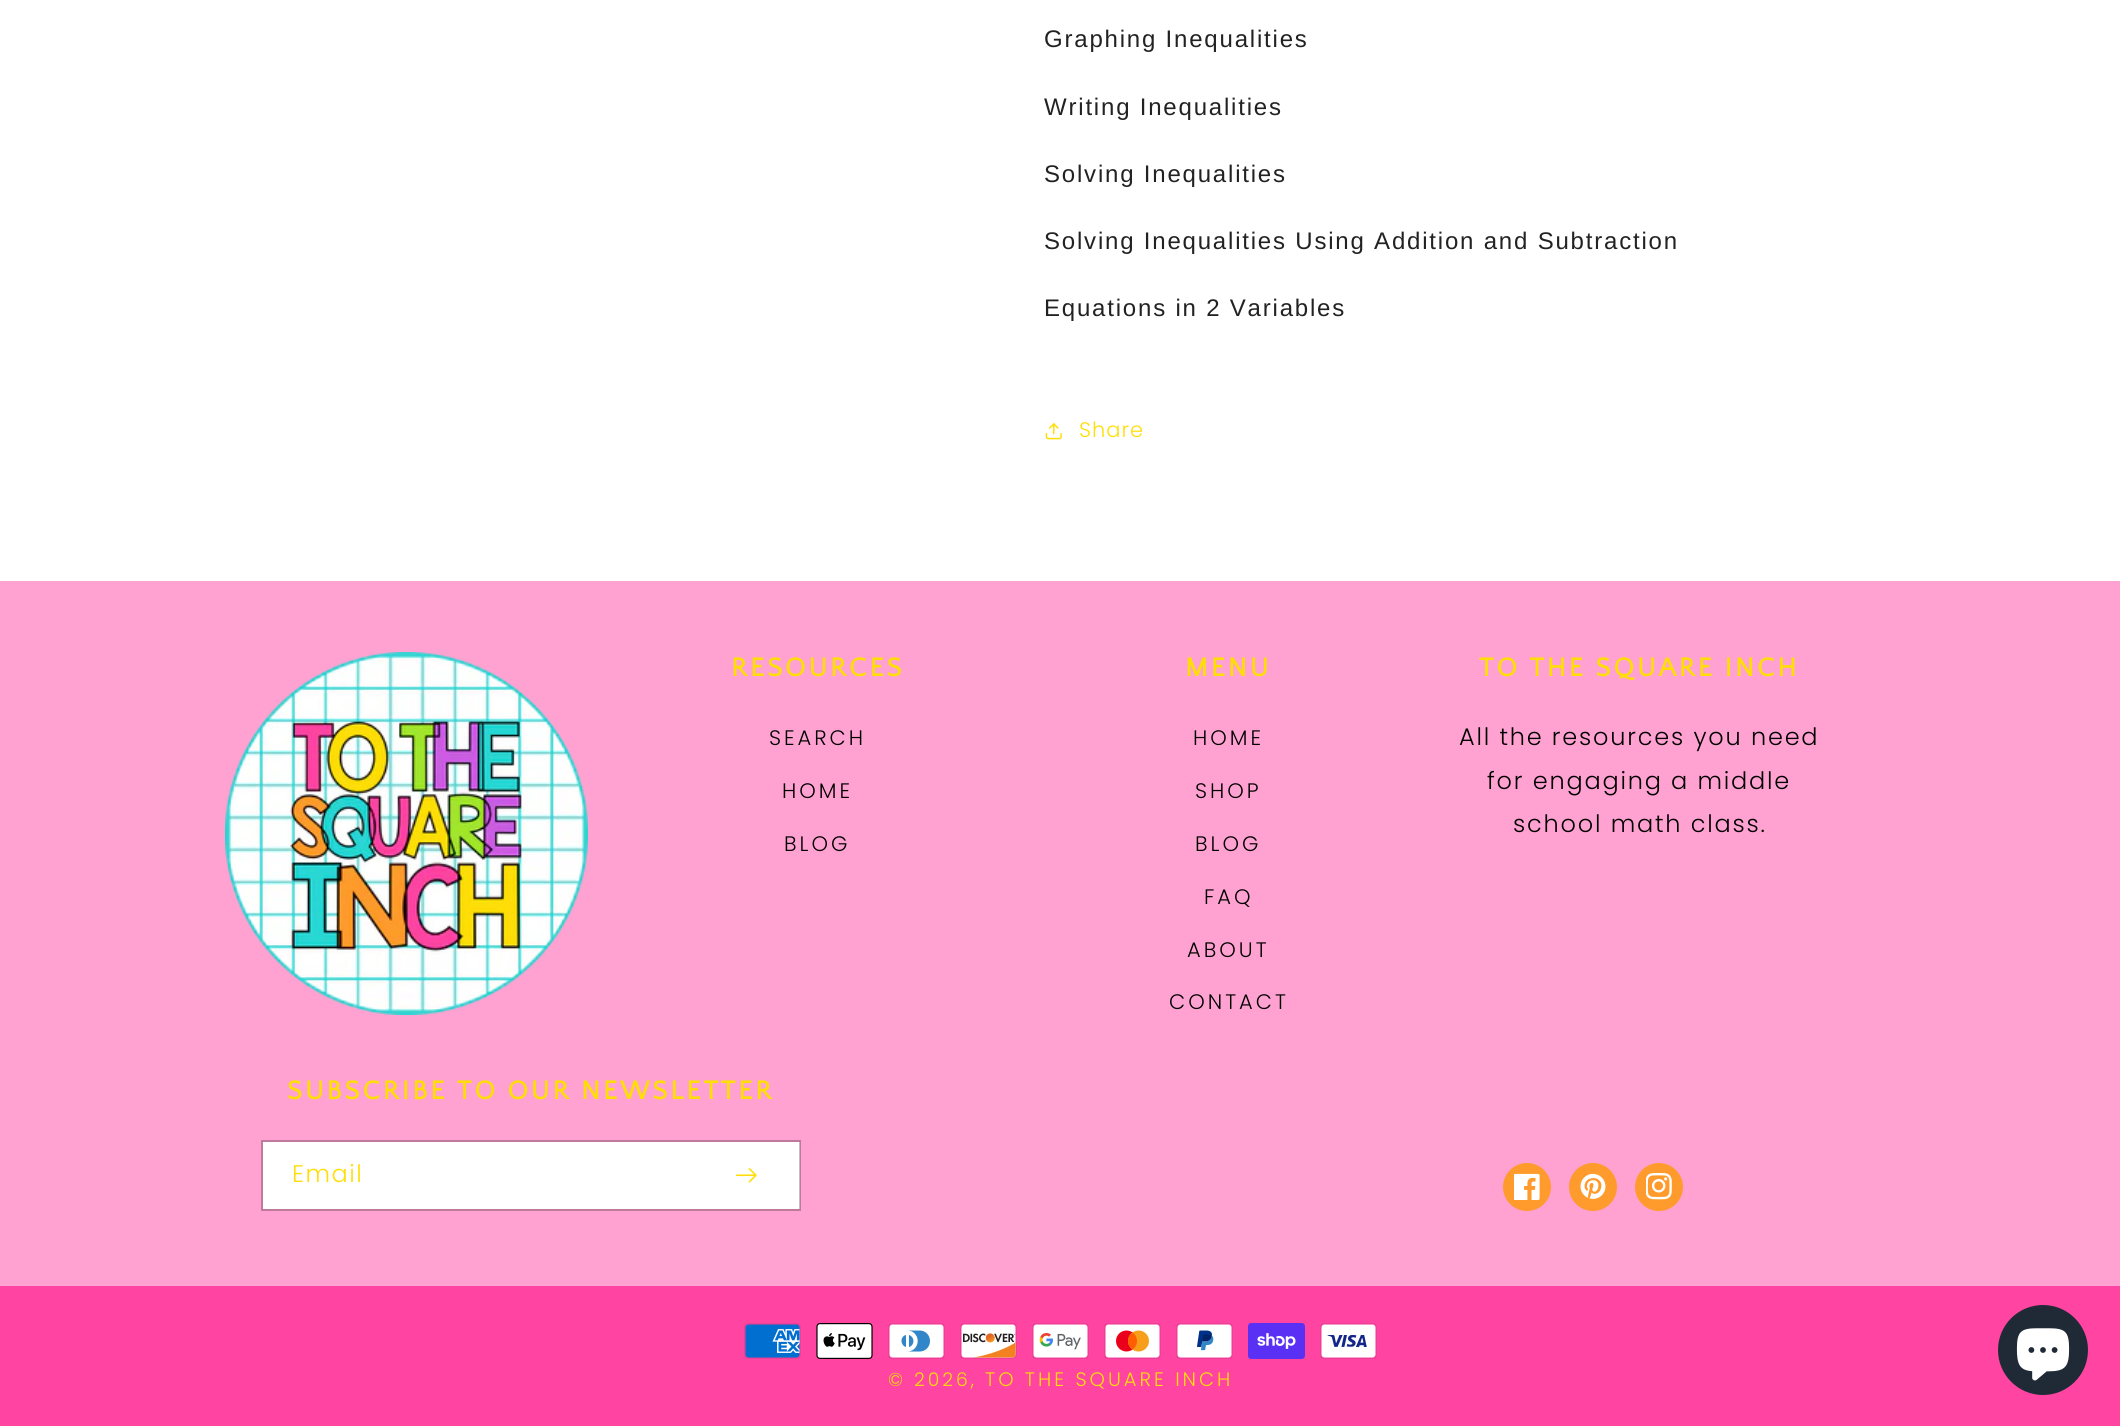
import math
import cairo



def draw_spaced(context, x, y, s, letter, word):
    context.move_to(x, y)
    for ch in s:
        context.show_text(ch)
        context.rel_move_to(letter + word * (ch == ' '), 0)


def draw_image(context, path, x, y, w, h):
    context.save()
    context.set_source_surface(cairo.ImageSurface.create_from_png(path), x, y)
    context.rectangle(x, y, w, h)
    context.fill()
    context.restore()


def draw(context):
    context.set_source_rgb(1, 1, 1)
    context.paint()
    draw_image(context, "images/1.png", 1045, 423, 17, 17)
    context.set_source_rgb(1, 162 / 255, 209 / 255)
    context.rectangle(0, 581, 2120, 705)
    context.fill()
    draw_image(context, "images/2.png", 225, 652, 363, 363)
    context.set_source_rgb(1, 1, 1)
    context.rectangle(263, 1142, 537, 67)
    context.fill()
    context.rectangle(262, 1141, 538, 69)
    context.set_source_rgba(0, 0, 0, 0.25)
    context.stroke()
    draw_image(context, "images/3.png", 735, 1168, 22, 15)
    context.set_source_rgb(1, 155 / 255, 44 / 255)
    context.arc(1527, 1187, 24, 0, 2 * math.pi)
    context.fill()
    draw_image(context, "images/4.png", 1514, 1173, 26, 27)
    context.arc(1593, 1187, 24, 0, 2 * math.pi)
    context.fill()
    draw_image(context, "images/5.png", 1580, 1173, 26, 26)
    context.arc(1659, 1187, 24, 0, 2 * math.pi)
    context.fill()
    draw_image(context, "images/6.png", 1646, 1173, 26, 27)
    context.set_source_rgb(1, 68 / 255, 162 / 255)
    context.rectangle(0, 1286, 2120, 140)
    context.fill()
    draw_image(context, "images/7.png", 744, 1323, 57, 36)
    draw_image(context, "images/8.png", 816, 1323, 57, 36)
    draw_image(context, "images/9.png", 888, 1323, 57, 36)
    draw_image(context, "images/10.png", 960, 1323, 57, 36)
    draw_image(context, "images/11.png", 1032, 1323, 57, 36)
    draw_image(context, "images/12.png", 1104, 1323, 57, 36)
    draw_image(context, "images/13.png", 1176, 1323, 57, 36)
    draw_image(context, "images/14.png", 1248, 1323, 57, 36)
    draw_image(context, "images/15.png", 1320, 1323, 57, 36)
    context.set_source_rgb(32 / 255, 42 / 255, 54 / 255)
    context.arc(2043, 1350, 45, 0, 2 * math.pi)
    context.fill()
    draw_image(context, "images/16.png", 2016, 1328, 54, 53)
    context.select_font_face("Liberation Sans")
    context.set_font_size(24)
    context.set_source_rgb(34 / 255, 34 / 255, 34 / 255)
    draw_spaced(context, 1044, 47, "Graphing Inequalities", 1.8, 0)
    draw_spaced(context, 1044, 115, "Writing Inequalities", 1.8, 0)
    draw_spaced(context, 1044, 182, "Solving Inequalities", 1.8, 0)
    draw_spaced(context, 1044, 249, "Solving Inequalities Using Addition and Subtraction", 1.8, 0)
    draw_spaced(context, 1044, 316, "Equations in 2 Variables", 1.8, 0)
    context.select_font_face("Poppins Light")
    context.set_font_size(21)
    context.set_source_rgb(1, 222 / 255, 7 / 255)
    draw_spaced(context, 1079, 437, "Share", 1, 0)
    context.select_font_face("Quattrocento Sans", cairo.FontSlant.NORMAL, cairo.FontWeight.BOLD)
    context.set_font_size(27)
    draw_spaced(context, 731, 676, "RESOURCES", 3, 0)
    context.select_font_face("Poppins Light")
    context.set_font_size(21)
    context.set_source_rgb(0, 0, 0)
    draw_spaced(context, 769, 745, "SEARCH", 3, 0)
    draw_spaced(context, 782, 798, "HOME", 3, 0)
    draw_spaced(context, 784, 851, "BLOG", 3, 0)
    context.select_font_face("Quattrocento Sans", cairo.FontSlant.NORMAL, cairo.FontWeight.BOLD)
    context.set_font_size(27)
    context.set_source_rgb(1, 222 / 255, 7 / 255)
    draw_spaced(context, 1185, 676, "MENU", 3, 0)
    context.select_font_face("Poppins Light")
    context.set_font_size(21)
    context.set_source_rgb(0, 0, 0)
    draw_spaced(context, 1193, 745, "HOME", 3, 0)
    draw_spaced(context, 1195, 798, "SHOP", 3, 0)
    draw_spaced(context, 1195, 851, "BLOG", 3, 0)
    draw_spaced(context, 1204, 904, "FAQ", 3, 0)
    draw_spaced(context, 1187, 957, "ABOUT", 3, 0)
    draw_spaced(context, 1169, 1009, "CONTACT", 3, 0)
    context.select_font_face("Quattrocento Sans", cairo.FontSlant.NORMAL, cairo.FontWeight.BOLD)
    context.set_font_size(27)
    context.set_source_rgb(1, 222 / 255, 7 / 255)
    draw_spaced(context, 1479, 676, "TO THE SQUARE INCH", 3, 0)
    context.select_font_face("Poppins Light")
    context.set_font_size(24)
    context.set_source_rgb(0, 0, 0)
    draw_spaced(context, 1459, 745, "All the resources you need", 1.8, 0)
    draw_spaced(context, 1487, 789, "for engaging a middle", 1.8, 0)
    draw_spaced(context, 1513, 832, "school math class.", 1.8, 0)
    context.select_font_face("Quattrocento Sans", cairo.FontSlant.NORMAL, cairo.FontWeight.BOLD)
    context.set_font_size(27)
    context.set_source_rgb(1, 222 / 255, 7 / 255)
    draw_spaced(context, 287, 1099, "SUBSCRIBE TO OUR NEWSLETTER", 3, 0)
    context.select_font_face("Poppins Light")
    context.set_font_size(24)
    draw_spaced(context, 292, 1182, "Email", 1.5, 0)
    context.set_font_size(18.75)
    draw_spaced(context, 888, 1386, "© 2026,", 3, 0)
    context.set_font_size(19.5)
    draw_spaced(context, 985, 1386, "TO THE SQUARE INCH", 3, 0)


surface = cairo.ImageSurface(cairo.Format.RGB24, 2120, 1426)
context = cairo.Context(surface)
options = cairo.FontOptions()
options.set_hint_metrics(cairo.HintMetrics.OFF)
options.set_hint_style(cairo.HintStyle.NONE)
context.set_font_options(options)
context.set_miter_limit(4)
draw(context)
surface.write_to_png("out.png")
